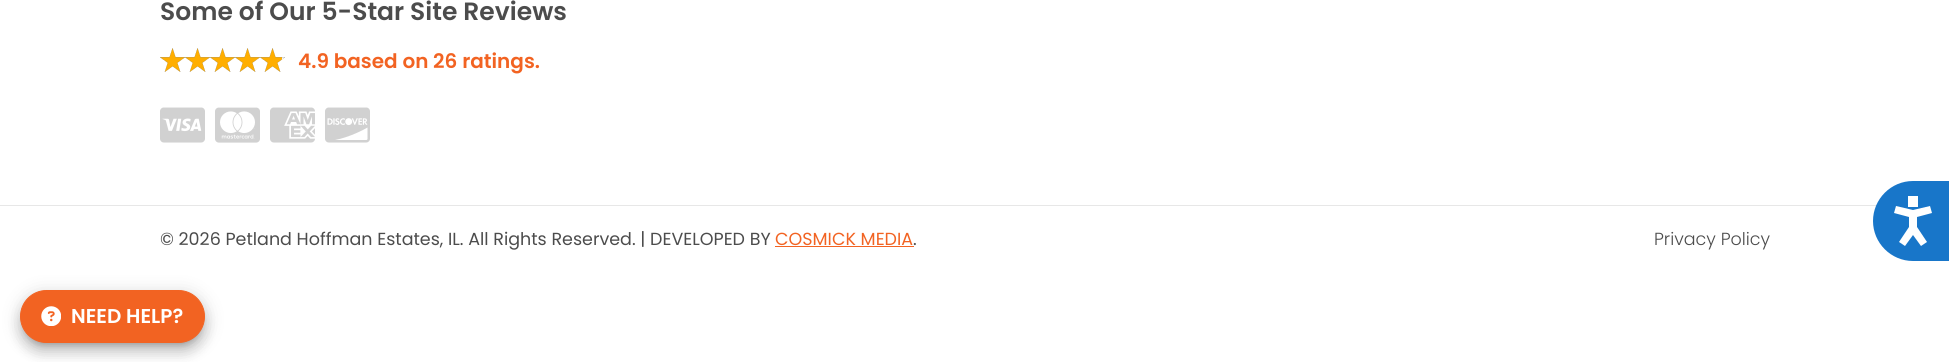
import math
import cairo



def rounded_rect(context, x, y, w, h, r):
    context.new_sub_path()
    for i, (u, v) in enumerate([(x + w - r, y + h - r), (x + r, y + h - r), (x + r, y + r), (x + w - r, y + r)]):
        context.arc(u, v, r, i * math.pi / 2, (i + 1) * math.pi / 2)
    context.close_path()


def draw_shadow(context, x, y, w, h, r, blur, alpha):
    context.push_group_with_content(cairo.Content.ALPHA)
    context.set_operator(cairo.Operator.SOURCE)
    for i in range(15, -16, -2):
        e = blur * i / 6
        if min(w, h) + 2 * e > 0:
            context.set_source_rgba(0, 0, 0, alpha * math.erfc((i - 1) / 8.5) / 2)
            rounded_rect(context, x - e, y - e, w + 2 * e, h + 2 * e, max(0, min(r + e + blur * .6, min(w, h) / 2 + e)))
            context.fill()
    context.mask(context.pop_group())


def draw_image(context, path, x, y, w, h):
    context.save()
    context.set_source_surface(cairo.ImageSurface.create_from_png(path), x, y)
    context.rectangle(x, y, w, h)
    context.fill()
    context.restore()


def draw(context):
    context.set_source_rgb(1, 1, 1)
    context.paint()
    draw_image(context, "images/1.png", 160, 48, 25, 24)
    draw_image(context, "images/1.png", 185, 48, 25, 24)
    draw_image(context, "images/1.png", 210, 48, 25, 24)
    draw_image(context, "images/1.png", 235, 48, 25, 24)
    draw_image(context, "images/2.png", 260, 48, 25, 24)
    draw_image(context, "images/3.png", 160, 107, 45, 36)
    draw_image(context, "images/4.png", 215, 107, 45, 36)
    draw_image(context, "images/5.png", 270, 107, 45, 36)
    draw_image(context, "images/6.png", 325, 107, 45, 36)
    context.set_source_rgb(231 / 255, 231 / 255, 231 / 255)
    context.rectangle(0, 205, 1877, 1)
    context.fill()
    context.set_source_rgb(242 / 255, 99 / 255, 34 / 255)
    context.rectangle(775, 246, 139, 1)
    context.fill()
    context.set_source_rgb(24 / 255, 118 / 255, 201 / 255)
    context.new_path()
    context.move_to(1913, 181)
    context.line_to(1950, 181)
    context.line_to(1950, 261)
    context.line_to(1913, 261)
    context.curve_to(1891, 261, 1873, 243, 1873, 221)
    context.curve_to(1873, 199, 1891, 181, 1913, 181)
    context.close_path()
    context.fill()
    context.set_source_rgb(1, 1, 1)
    context.new_path()
    context.move_to(1909, 217)
    context.line_to(1894, 213)
    context.line_to(1896, 206)
    context.line_to(1913, 210)
    context.line_to(1930, 206)
    context.line_to(1932, 213)
    context.line_to(1917, 217)
    context.line_to(1917, 227)
    context.line_to(1927, 242)
    context.line_to(1921, 246)
    context.line_to(1913, 235)
    context.line_to(1905, 246)
    context.line_to(1899, 242)
    context.line_to(1909, 227)
    context.close_path()
    context.move_to(1908, 196)
    context.line_to(1918, 196)
    context.line_to(1918, 207)
    context.line_to(1908, 207)
    context.close_path()
    context.fill()
    context.set_source_rgb(0, 0, 0)
    draw_shadow(context, 18, 291, 190, 58, 29, 9, 0.12)
    draw_shadow(context, 19, 299, 187, 55, 27.5, 6, 0.14)
    draw_shadow(context, 24, 300, 177, 45, 22.5, 3, 0.2)
    context.set_source_rgb(242 / 255, 99 / 255, 34 / 255)
    rounded_rect(context, 20.5, 290.5, 184, 52, 26)
    context.fill_preserve()
    context.set_line_width(1)
    context.stroke()
    draw_image(context, "images/7.png", 41, 306, 20, 20)
    context.select_font_face("Poppins SemiBold")
    context.set_font_size(25)
    context.set_source_rgb(76 / 255, 76 / 255, 76 / 255)
    context.move_to(160, 20)
    context.show_text("Some of Our 5-Star Site Reviews")
    context.set_font_size(20)
    context.set_source_rgb(242 / 255, 99 / 255, 34 / 255)
    context.move_to(298, 68)
    context.show_text("4.9 based on 26 ratings.")
    context.select_font_face("Poppins")
    context.set_font_size(17.5)
    context.set_source_rgb(76 / 255, 76 / 255, 76 / 255)
    context.move_to(160, 245)
    context.show_text("© 2026 Petland Hoffman Estates, IL. All Rights Reserved. | DEVELOPED BY")
    context.set_source_rgb(242 / 255, 99 / 255, 34 / 255)
    context.move_to(775, 245)
    context.show_text("COSMICK MEDIA")
    context.set_source_rgb(76 / 255, 76 / 255, 76 / 255)
    context.move_to(913, 245)
    context.show_text(".")
    context.select_font_face("Poppins Light")
    context.move_to(1654, 245)
    context.show_text("Privacy Policy")
    context.select_font_face("Poppins SemiBold")
    context.set_font_size(20)
    context.set_source_rgb(1, 1, 1)
    context.move_to(71, 323)
    context.show_text("NEED HELP?")


surface = cairo.ImageSurface(cairo.Format.RGB24, 1949, 362)
context = cairo.Context(surface)
options = cairo.FontOptions()
options.set_hint_metrics(cairo.HintMetrics.OFF)
options.set_hint_style(cairo.HintStyle.NONE)
context.set_font_options(options)
context.set_miter_limit(4)
draw(context)
surface.write_to_png("out.png")
